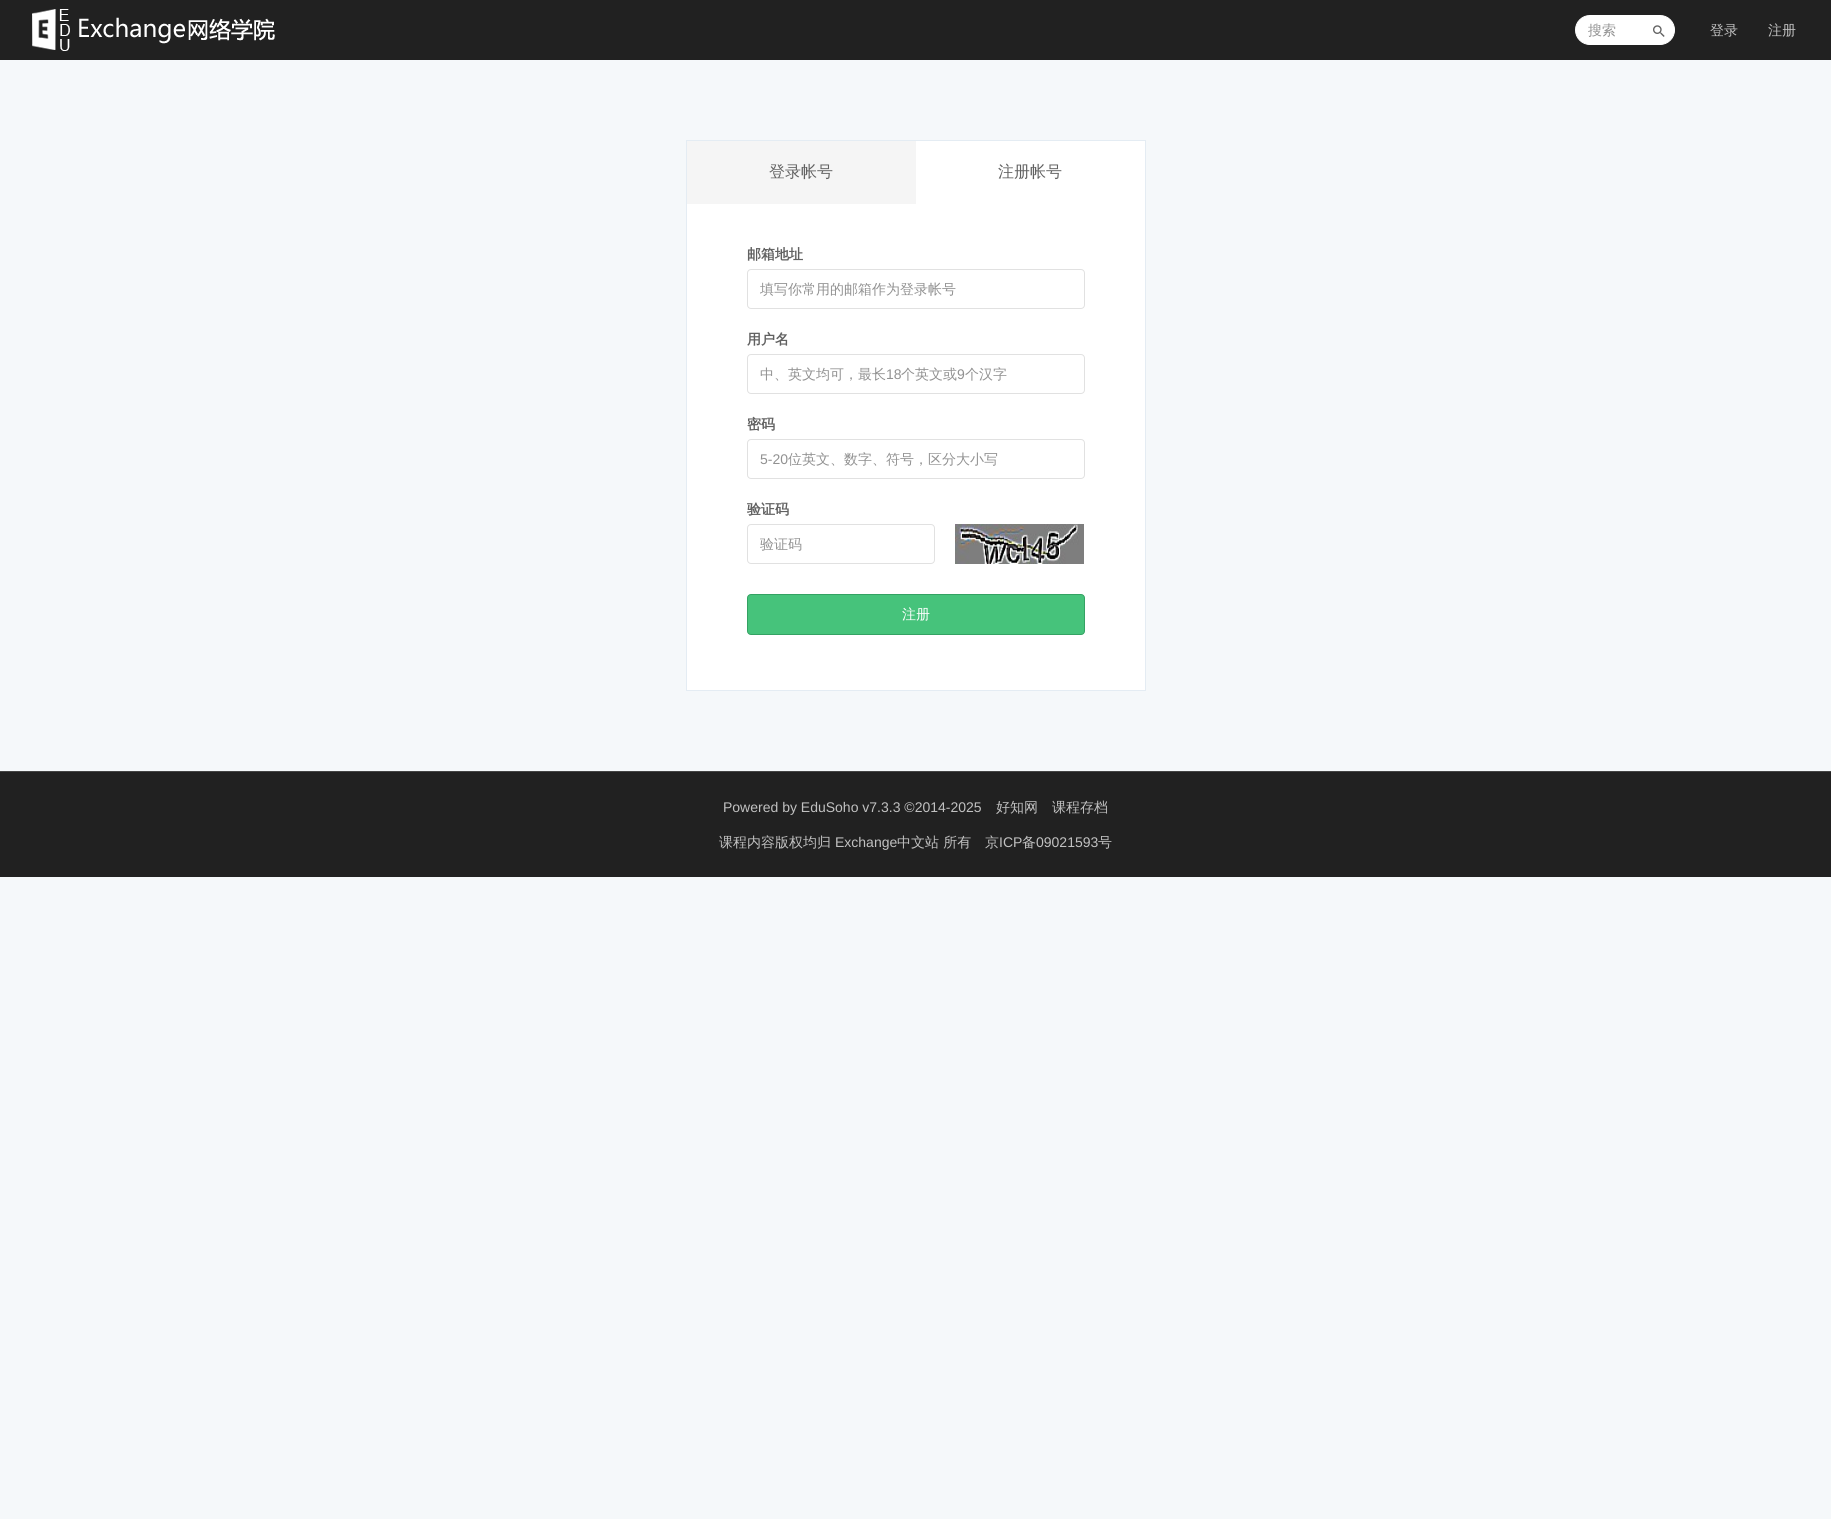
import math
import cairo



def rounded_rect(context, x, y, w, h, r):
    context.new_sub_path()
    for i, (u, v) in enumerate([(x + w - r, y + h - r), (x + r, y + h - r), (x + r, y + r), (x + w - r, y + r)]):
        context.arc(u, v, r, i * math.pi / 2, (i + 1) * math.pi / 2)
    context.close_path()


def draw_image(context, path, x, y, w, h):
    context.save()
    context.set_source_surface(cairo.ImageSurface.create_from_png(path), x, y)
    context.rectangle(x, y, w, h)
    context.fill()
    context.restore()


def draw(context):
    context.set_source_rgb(245 / 255, 248 / 255, 250 / 255)
    context.paint()
    context.set_source_rgb(33 / 255, 33 / 255, 33 / 255)
    context.rectangle(0, 0, 1831, 60)
    context.fill()
    draw_image(context, "images/1.png", 32, 9, 243, 42)
    context.set_source_rgb(1, 1, 1)
    rounded_rect(context, 1575.5, 15.5, 99, 29, 14.5)
    context.fill_preserve()
    context.set_line_width(1)
    context.stroke()
    draw_image(context, "images/2.png", 1653, 25, 12, 12)
    context.rectangle(686.5, 140.5, 459, 550)
    context.fill_preserve()
    context.set_source_rgb(228 / 255, 236 / 255, 243 / 255)
    context.stroke()
    context.set_source_rgb(245 / 255, 245 / 255, 245 / 255)
    context.rectangle(687, 141, 229, 63)
    context.fill()
    rounded_rect(context, 747.5, 269.5, 337, 39, 3.5)
    context.set_source_rgb(225 / 255, 225 / 255, 225 / 255)
    context.stroke()
    rounded_rect(context, 747.5, 354.5, 337, 39, 3.5)
    context.stroke()
    rounded_rect(context, 747.5, 439.5, 337, 39, 3.5)
    context.stroke()
    rounded_rect(context, 747.5, 524.5, 187, 39, 3.5)
    context.stroke()
    draw_image(context, "images/3.png", 955, 524, 129, 40)
    context.set_source_rgb(70 / 255, 195 / 255, 123 / 255)
    rounded_rect(context, 747.5, 594.5, 337, 40, 3.5)
    context.fill_preserve()
    context.set_source_rgb(52 / 255, 162 / 255, 99 / 255)
    context.stroke()
    context.set_source_rgb(33 / 255, 33 / 255, 33 / 255)
    context.rectangle(0, 772, 1831, 105)
    context.fill()
    context.set_source_rgb(68 / 255, 68 / 255, 68 / 255)
    context.rectangle(0, 771, 1831, 1)
    context.fill()
    context.select_font_face("WenQuanYi Zen Hei Medium")
    context.set_font_size(14)
    context.set_source_rgb(145 / 255, 145 / 255, 145 / 255)
    context.move_to(1588, 35)
    context.show_text("搜索")
    context.set_source_rgb(193 / 255, 193 / 255, 193 / 255)
    context.move_to(1710, 35)
    context.show_text("登录")
    context.move_to(1768, 35)
    context.show_text("注册")
    context.set_font_size(16)
    context.set_source_rgb(97 / 255, 97 / 255, 97 / 255)
    context.move_to(769, 177)
    context.show_text("登录帐号")
    context.move_to(998, 177)
    context.show_text("注册帐号")
    context.select_font_face("WenQuanYi Zen Hei", cairo.FontSlant.NORMAL, cairo.FontWeight.BOLD)
    context.set_font_size(14)
    context.move_to(747, 259)
    context.show_text("邮箱地址")
    context.save()
    context.rectangle(760, 281, 312, 18)
    context.clip()
    context.select_font_face("WenQuanYi Zen Hei Medium")
    context.set_source_rgb(145 / 255, 145 / 255, 145 / 255)
    context.move_to(760, 294)
    context.show_text("填写你常用的邮箱作为登录帐号")
    context.restore()
    context.move_to(747, 344)
    context.show_text("用户名")
    context.select_font_face("WenQuanYi Zen Hei Medium")
    context.set_source_rgb(145 / 255, 145 / 255, 145 / 255)
    context.move_to(760, 379)
    context.show_text("中、英文均可，最长")
    context.select_font_face("Liberation Sans")
    context.move_to(886, 379)
    context.show_text("18")
    context.select_font_face("WenQuanYi Zen Hei Medium")
    context.move_to(901, 379)
    context.show_text("个英文或")
    context.select_font_face("Liberation Sans")
    context.move_to(957, 379)
    context.show_text("9")
    context.select_font_face("WenQuanYi Zen Hei Medium")
    context.move_to(965, 379)
    context.show_text("个汉字")
    context.select_font_face("WenQuanYi Zen Hei", cairo.FontSlant.NORMAL, cairo.FontWeight.BOLD)
    context.set_source_rgb(97 / 255, 97 / 255, 97 / 255)
    context.move_to(747, 429)
    context.show_text("密码")
    context.select_font_face("Liberation Sans")
    context.set_source_rgb(145 / 255, 145 / 255, 145 / 255)
    context.move_to(760, 464)
    context.show_text("5-20")
    context.select_font_face("WenQuanYi Zen Hei Medium")
    context.move_to(788, 464)
    context.show_text("位英文、数字、符号，区分大小写")
    context.select_font_face("WenQuanYi Zen Hei", cairo.FontSlant.NORMAL, cairo.FontWeight.BOLD)
    context.set_source_rgb(97 / 255, 97 / 255, 97 / 255)
    context.move_to(747, 514)
    context.show_text("验证码")
    context.save()
    context.rectangle(760, 536, 162, 18)
    context.clip()
    context.select_font_face("WenQuanYi Zen Hei Medium")
    context.set_source_rgb(145 / 255, 145 / 255, 145 / 255)
    context.move_to(760, 549)
    context.show_text("验证码")
    context.restore()
    context.select_font_face("WenQuanYi Zen Hei Medium")
    context.set_source_rgb(1, 1, 1)
    context.move_to(902, 619)
    context.show_text("注册")
    context.select_font_face("Liberation Sans")
    context.set_source_rgb(193 / 255, 193 / 255, 193 / 255)
    context.move_to(723, 812)
    context.show_text("Powered by EduSoho v7.3.3 ©2014-2025")
    context.select_font_face("WenQuanYi Zen Hei Medium")
    context.move_to(996, 812)
    context.show_text("好知网")
    context.move_to(1052, 812)
    context.show_text("课程存档")
    context.move_to(719, 847)
    context.show_text("课程内容版权均归")
    context.select_font_face("Liberation Sans")
    context.move_to(835, 847)
    context.show_text("Exchange")
    context.select_font_face("WenQuanYi Zen Hei Medium")
    context.move_to(897, 847)
    context.show_text("中文站 所有")
    context.move_to(985, 847)
    context.show_text("京")
    context.select_font_face("Liberation Sans")
    context.move_to(999, 847)
    context.show_text("ICP")
    context.select_font_face("WenQuanYi Zen Hei Medium")
    context.move_to(1022, 847)
    context.show_text("备")
    context.select_font_face("Liberation Sans")
    context.move_to(1036, 847)
    context.show_text("09021593")
    context.select_font_face("WenQuanYi Zen Hei Medium")
    context.move_to(1098, 847)
    context.show_text("号")


surface = cairo.ImageSurface(cairo.Format.RGB24, 1831, 1519)
context = cairo.Context(surface)
options = cairo.FontOptions()
options.set_hint_metrics(cairo.HintMetrics.OFF)
options.set_hint_style(cairo.HintStyle.NONE)
context.set_font_options(options)
context.set_miter_limit(4)
draw(context)
surface.write_to_png("out.png")
